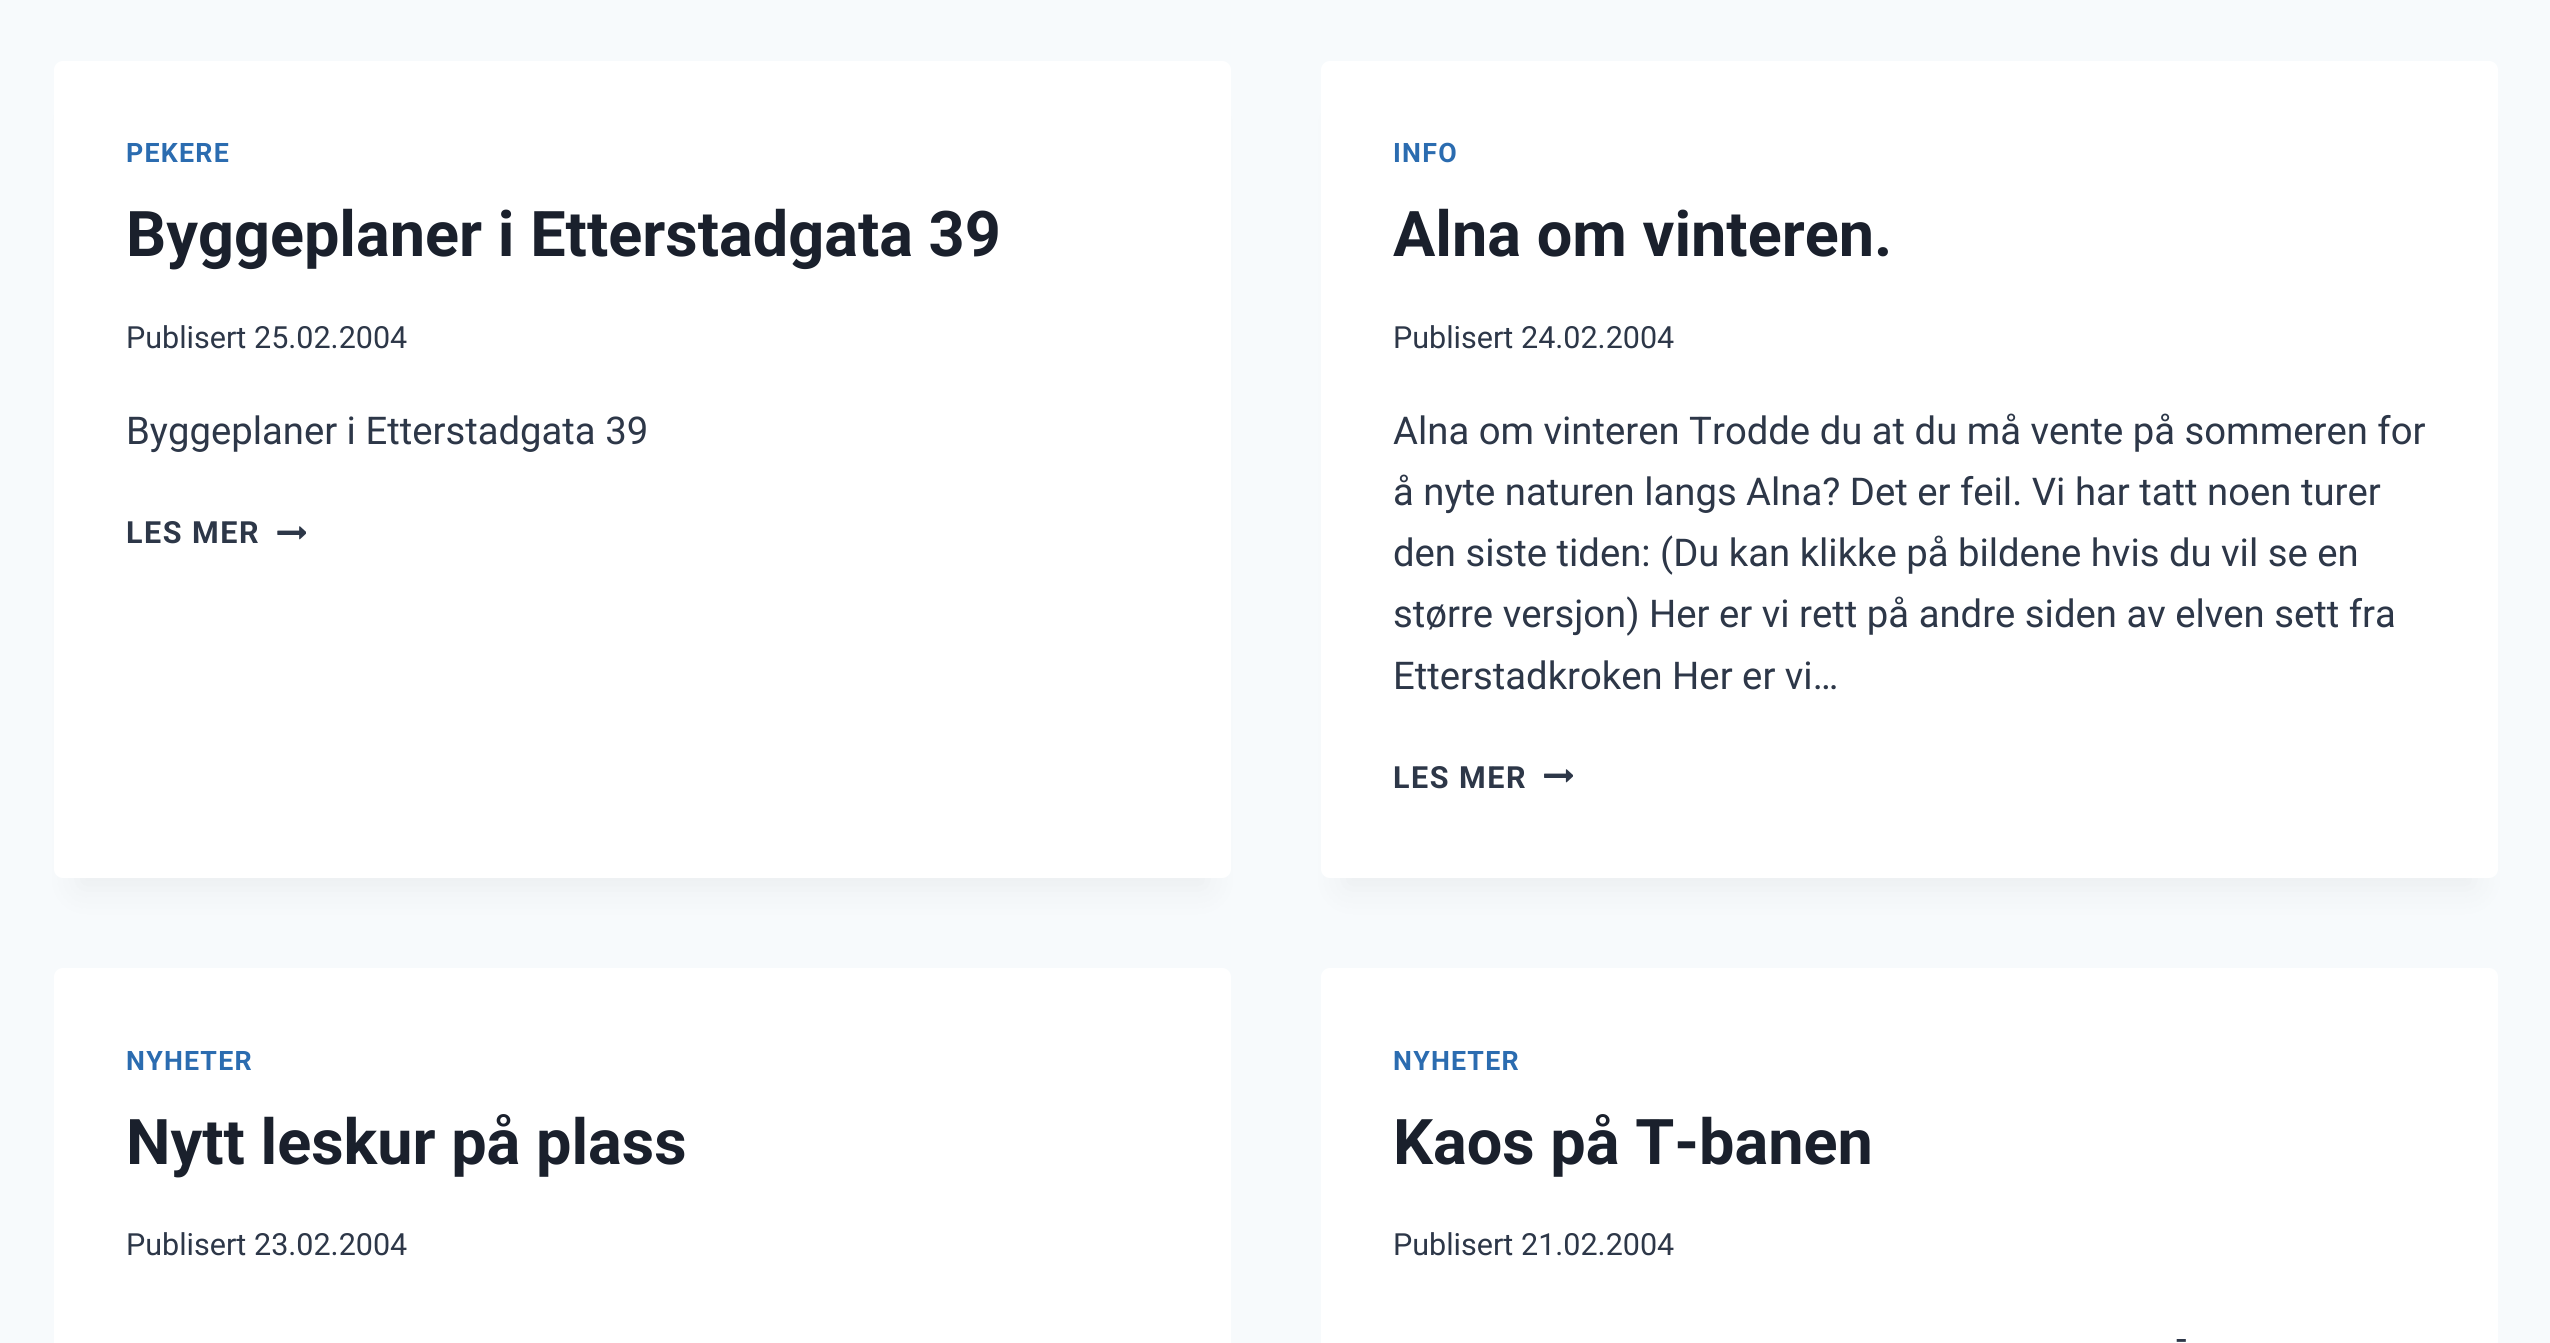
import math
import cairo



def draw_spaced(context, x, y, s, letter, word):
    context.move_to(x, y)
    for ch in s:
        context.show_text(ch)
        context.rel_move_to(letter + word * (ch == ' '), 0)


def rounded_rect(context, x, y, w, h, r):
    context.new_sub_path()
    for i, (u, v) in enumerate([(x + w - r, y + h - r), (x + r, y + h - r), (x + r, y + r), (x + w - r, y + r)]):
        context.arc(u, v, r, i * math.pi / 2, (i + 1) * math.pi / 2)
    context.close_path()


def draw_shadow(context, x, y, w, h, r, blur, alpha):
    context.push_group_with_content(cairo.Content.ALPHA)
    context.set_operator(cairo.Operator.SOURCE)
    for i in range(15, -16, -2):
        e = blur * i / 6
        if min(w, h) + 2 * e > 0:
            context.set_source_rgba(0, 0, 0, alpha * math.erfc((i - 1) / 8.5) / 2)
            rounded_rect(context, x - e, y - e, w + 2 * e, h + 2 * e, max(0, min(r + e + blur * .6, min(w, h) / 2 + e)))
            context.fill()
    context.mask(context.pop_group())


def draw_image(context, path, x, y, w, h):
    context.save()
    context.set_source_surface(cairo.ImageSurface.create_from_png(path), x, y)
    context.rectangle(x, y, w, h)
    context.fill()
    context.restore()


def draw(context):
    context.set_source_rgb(247 / 255, 250 / 255, 252 / 255)
    context.paint()
    context.set_source_rgb(0, 0, 0)
    draw_shadow(context, 77, 117, 1131, 772, 0, 17, 0.05)
    context.set_source_rgb(1, 1, 1)
    rounded_rect(context, 54, 61, 1177, 817, 9)
    context.fill()
    draw_image(context, "images/1.png", 277, 526, 29, 14)
    context.set_source_rgb(0, 0, 0)
    draw_shadow(context, 1343, 117, 1132, 772, 0, 17, 0.05)
    context.set_source_rgb(1, 1, 1)
    rounded_rect(context, 1321, 61, 1177, 817, 9)
    context.fill()
    draw_image(context, "images/2.png", 1544, 769, 29, 14)
    rounded_rect(context, 54, 968, 1177, 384, 9)
    context.fill()
    rounded_rect(context, 1321, 968, 1177, 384, 9)
    context.fill()
    context.select_font_face("Roboto", cairo.FontSlant.NORMAL, cairo.FontWeight.BOLD)
    context.set_font_size(26.75)
    context.set_source_rgb(43 / 255, 108 / 255, 176 / 255)
    draw_spaced(context, 126, 162, "PEKERE", 1.25, 0)
    context.set_font_size(63)
    context.set_source_rgb(26 / 255, 32 / 255, 44 / 255)
    context.move_to(126, 256)
    context.show_text("Byggeplaner i Etterstadgata 39")
    context.select_font_face("Roboto")
    context.set_font_size(30.5)
    context.set_source_rgb(45 / 255, 55 / 255, 72 / 255)
    context.move_to(126, 348)
    context.show_text("Publisert")
    context.move_to(254, 348)
    context.show_text("25.02.2004")
    context.set_font_size(38.25)
    context.move_to(126, 444)
    context.show_text("Byggeplaner i Etterstadgata 39")
    context.select_font_face("Roboto", cairo.FontSlant.NORMAL, cairo.FontWeight.BOLD)
    context.set_font_size(30.5)
    draw_spaced(context, 126, 543, "LES MER", 1.5, 0)
    context.set_font_size(26.75)
    context.set_source_rgb(43 / 255, 108 / 255, 176 / 255)
    draw_spaced(context, 1393, 162, "INFO", 1.25, 0)
    context.set_font_size(63)
    context.set_source_rgb(26 / 255, 32 / 255, 44 / 255)
    context.move_to(1393, 256)
    context.show_text("Alna om vinteren.")
    context.select_font_face("Roboto")
    context.set_font_size(30.5)
    context.set_source_rgb(45 / 255, 55 / 255, 72 / 255)
    context.move_to(1393, 348)
    context.show_text("Publisert")
    context.move_to(1521, 348)
    context.show_text("24.02.2004")
    context.set_font_size(38.25)
    context.move_to(1393, 444)
    context.show_text("Alna om vinteren Trodde du at du må vente på sommeren for")
    context.move_to(1393, 505)
    context.show_text("å nyte naturen langs Alna? Det er feil. Vi har tatt noen turer")
    context.move_to(1393, 566)
    context.show_text("den siste tiden: (Du kan klikke på bildene hvis du vil se en")
    context.move_to(1393, 627)
    context.show_text("større versjon) Her er vi rett på andre siden av elven sett fra")
    context.move_to(1393, 689)
    context.show_text("Etterstadkroken Her er vi…")
    context.select_font_face("Roboto", cairo.FontSlant.NORMAL, cairo.FontWeight.BOLD)
    context.set_font_size(30.5)
    draw_spaced(context, 1393, 788, "LES MER", 1.5, 0)
    context.set_font_size(26.75)
    context.set_source_rgb(43 / 255, 108 / 255, 176 / 255)
    draw_spaced(context, 126, 1070, "NYHETER", 1.25, 0)
    context.set_font_size(63)
    context.set_source_rgb(26 / 255, 32 / 255, 44 / 255)
    context.move_to(126, 1164)
    context.show_text("Nytt leskur på plass")
    context.select_font_face("Roboto")
    context.set_font_size(30.5)
    context.set_source_rgb(45 / 255, 55 / 255, 72 / 255)
    context.move_to(126, 1255)
    context.show_text("Publisert")
    context.move_to(254, 1255)
    context.show_text("23.02.2004")
    context.select_font_face("Roboto", cairo.FontSlant.NORMAL, cairo.FontWeight.BOLD)
    context.set_font_size(26.75)
    context.set_source_rgb(43 / 255, 108 / 255, 176 / 255)
    draw_spaced(context, 1393, 1070, "NYHETER", 1.25, 0)
    context.set_font_size(63)
    context.set_source_rgb(26 / 255, 32 / 255, 44 / 255)
    context.move_to(1393, 1164)
    context.show_text("Kaos på T-banen")
    context.select_font_face("Roboto")
    context.set_font_size(30.5)
    context.set_source_rgb(45 / 255, 55 / 255, 72 / 255)
    context.move_to(1393, 1255)
    context.show_text("Publisert")
    context.move_to(1521, 1255)
    context.show_text("21.02.2004")
    context.set_font_size(38.25)
    context.move_to(2176, 1352)
    context.show_text("-")


surface = cairo.ImageSurface(cairo.Format.RGB24, 2550, 1343)
context = cairo.Context(surface)
options = cairo.FontOptions()
options.set_hint_metrics(cairo.HintMetrics.OFF)
options.set_hint_style(cairo.HintStyle.NONE)
context.set_font_options(options)
context.set_miter_limit(4)
draw(context)
surface.write_to_png("out.png")
